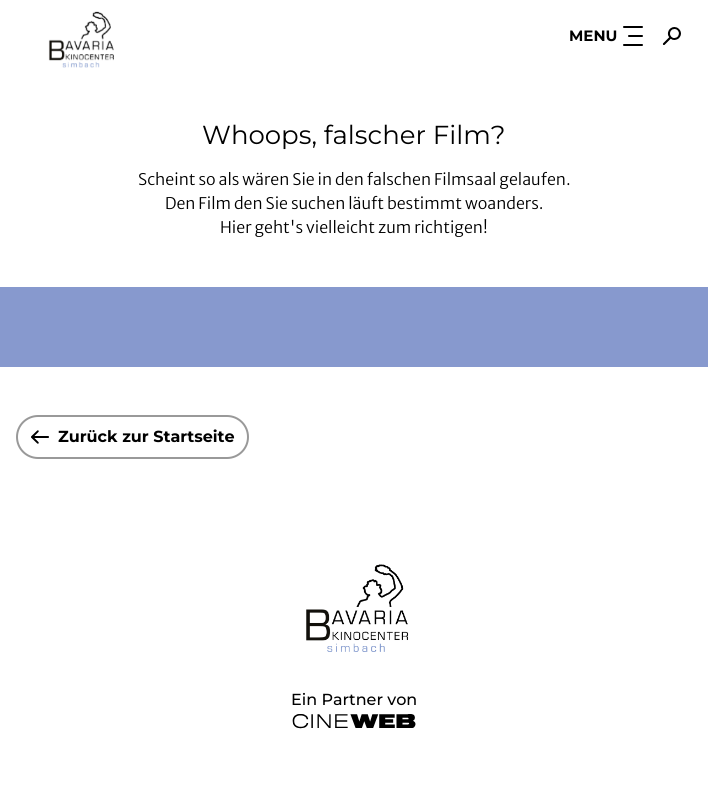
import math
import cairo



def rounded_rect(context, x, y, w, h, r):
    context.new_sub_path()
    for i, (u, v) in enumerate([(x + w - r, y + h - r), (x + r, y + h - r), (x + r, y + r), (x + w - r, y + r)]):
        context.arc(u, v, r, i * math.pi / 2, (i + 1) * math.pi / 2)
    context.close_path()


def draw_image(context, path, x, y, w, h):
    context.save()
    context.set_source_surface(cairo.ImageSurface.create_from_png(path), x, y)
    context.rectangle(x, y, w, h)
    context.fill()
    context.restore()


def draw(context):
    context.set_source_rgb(1, 1, 1)
    context.paint()
    draw_image(context, "images/1.png", 48, 11, 66, 57)
    context.set_source_rgb(0, 0, 0)
    rounded_rect(context, 623, 26, 20, 2, 1)
    context.fill()
    rounded_rect(context, 628, 35, 15, 2, 1)
    context.fill()
    rounded_rect(context, 623, 44, 20, 2, 1)
    context.fill()
    draw_image(context, "images/2.png", 662, 27, 19, 18)
    context.set_source_rgb(135 / 255, 153 / 255, 206 / 255)
    context.rectangle(0, 287, 708, 80)
    context.fill()
    rounded_rect(context, 17, 416, 231, 42, 21)
    context.set_source_rgb(153 / 255, 153 / 255, 153 / 255)
    context.stroke()
    draw_image(context, "images/3.png", 31, 430, 18, 14)
    draw_image(context, "images/4.png", 306, 564, 103, 88)
    draw_image(context, "images/5.png", 292, 714, 124, 15)
    context.select_font_face("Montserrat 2 Thin")
    context.set_font_size(15)
    context.set_source_rgb(0, 0, 0)
    context.move_to(569, 41)
    context.show_text("MENU")
    context.select_font_face("Montserrat Thin")
    context.set_font_size(26)
    context.move_to(202, 144)
    context.show_text("Whoops, falscher Film?")
    context.select_font_face("Merriweather Sans Light")
    context.set_font_size(16)
    context.move_to(138, 185)
    context.show_text("Scheint so als wären Sie in den falschen Filmsaal gelaufen.")
    context.move_to(165, 209)
    context.show_text("Den Film den Sie suchen läuft bestimmt woanders.")
    context.move_to(220, 233)
    context.show_text("Hier geht's vielleicht zum richtigen!")
    context.select_font_face("Montserrat 2 Thin")
    context.move_to(58, 442)
    context.show_text("Zurück zur Startseite")
    context.select_font_face("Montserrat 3 Thin")
    context.move_to(291, 705)
    context.show_text("Ein Partner von")


surface = cairo.ImageSurface(cairo.Format.RGB24, 708, 791)
context = cairo.Context(surface)
options = cairo.FontOptions()
options.set_hint_metrics(cairo.HintMetrics.OFF)
options.set_hint_style(cairo.HintStyle.NONE)
context.set_font_options(options)
context.set_miter_limit(4)
draw(context)
surface.write_to_png("out.png")
